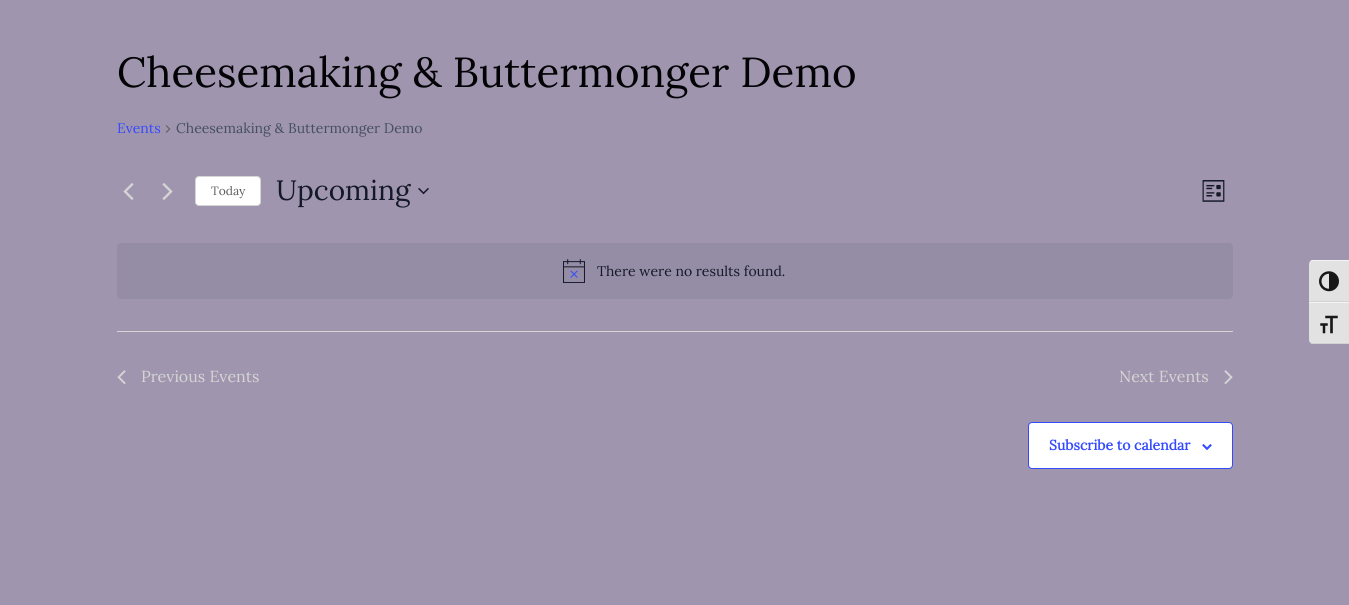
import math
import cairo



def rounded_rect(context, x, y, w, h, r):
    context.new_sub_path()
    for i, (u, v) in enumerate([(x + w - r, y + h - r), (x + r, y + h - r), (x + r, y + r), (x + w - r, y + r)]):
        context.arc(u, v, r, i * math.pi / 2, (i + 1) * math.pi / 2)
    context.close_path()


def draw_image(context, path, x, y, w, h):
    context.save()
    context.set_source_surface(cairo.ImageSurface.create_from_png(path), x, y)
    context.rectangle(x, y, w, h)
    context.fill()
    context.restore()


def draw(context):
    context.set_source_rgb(159 / 255, 149 / 255, 174 / 255)
    context.paint()
    draw_image(context, "images/1.png", 165, 125, 6, 8)
    draw_image(context, "images/2.png", 123, 183, 11, 17)
    draw_image(context, "images/3.png", 162, 183, 11, 17)
    context.set_source_rgb(1, 1, 1)
    rounded_rect(context, 195.5, 176.5, 65, 29, 3.5)
    context.fill_preserve()
    context.set_source_rgb(213 / 255, 213 / 255, 213 / 255)
    context.set_line_width(1)
    context.stroke()
    draw_image(context, "images/4.png", 418, 188, 11, 7)
    draw_image(context, "images/5.png", 1202, 180, 23, 22)
    context.set_source_rgb(149 / 255, 140 / 255, 165 / 255)
    rounded_rect(context, 117, 243, 1116, 56, 4)
    context.fill()
    draw_image(context, "images/6.png", 563, 259, 22, 24)
    context.set_source_rgb(213 / 255, 213 / 255, 213 / 255)
    context.rectangle(117, 331, 1116, 1)
    context.fill()
    draw_image(context, "images/7.png", 117, 370, 9, 14)
    draw_image(context, "images/8.png", 1224, 370, 9, 14)
    context.set_source_rgb(1, 1, 1)
    rounded_rect(context, 1028.5, 422.5, 204, 46, 3.5)
    context.fill_preserve()
    context.set_source_rgb(51 / 255, 74 / 255, 1)
    context.stroke()
    draw_image(context, "images/9.png", 1202, 444, 10, 6)
    context.set_source_rgb(226 / 255, 226 / 255, 226 / 255)
    context.new_path()
    context.move_to(1313, 260)
    context.line_to(1349, 260)
    context.line_to(1349, 302)
    context.line_to(1309, 302)
    context.line_to(1309, 264)
    context.curve_to(1309, 262, 1311, 260, 1313, 260)
    context.close_path()
    context.fill()
    context.set_source_rgb(245 / 255, 245 / 255, 245 / 255)
    context.new_path()
    context.move_to(1313, 261)
    context.line_to(1349, 261)
    context.line_to(1349, 260)
    context.line_to(1313, 260)
    context.curve_to(1311, 260, 1309, 262, 1309, 264)
    context.curve_to(1309, 262, 1311, 261, 1313, 261)
    context.close_path()
    context.fill()
    context.set_source_rgb(210 / 255, 210 / 255, 210 / 255)
    context.rectangle(1309, 301, 40, 1)
    context.fill()
    draw_image(context, "images/10.png", 1319, 271, 20, 21)
    context.set_source_rgb(226 / 255, 226 / 255, 226 / 255)
    context.new_path()
    context.move_to(1309, 302)
    context.line_to(1349, 302)
    context.line_to(1349, 344)
    context.line_to(1313, 344)
    context.curve_to(1311, 344, 1309, 342, 1309, 340)
    context.close_path()
    context.fill()
    context.set_source_rgb(245 / 255, 245 / 255, 245 / 255)
    context.rectangle(1309, 302, 40, 1)
    context.fill()
    context.set_source_rgb(210 / 255, 210 / 255, 210 / 255)
    context.new_path()
    context.move_to(1349, 344)
    context.line_to(1349, 343)
    context.line_to(1313, 343)
    context.curve_to(1311, 343, 1309, 342, 1309, 340)
    context.curve_to(1309, 342, 1311, 344, 1313, 344)
    context.close_path()
    context.fill()
    draw_image(context, "images/11.png", 1320, 315, 18, 19)
    context.select_font_face("Lora")
    context.set_font_size(42)
    context.set_source_rgb(3 / 255, 3 / 255, 6 / 255)
    context.move_to(117, 87)
    context.show_text("Cheesemaking & Buttermonger Demo")
    context.set_font_size(14)
    context.set_source_rgb(51 / 255, 74 / 255, 1)
    context.move_to(117, 133)
    context.show_text("Events")
    context.set_source_rgb(69 / 255, 79 / 255, 94 / 255)
    context.move_to(176, 133)
    context.show_text("Cheesemaking & Buttermonger Demo")
    context.set_font_size(12)
    context.set_source_rgb(93 / 255, 93 / 255, 93 / 255)
    context.move_to(211, 195)
    context.show_text("Today")
    context.set_font_size(28)
    context.set_source_rgb(20 / 255, 24 / 255, 39 / 255)
    context.move_to(276, 200)
    context.show_text("Upcoming")
    context.set_font_size(14)
    context.move_to(597, 276)
    context.show_text("There were no results found.")
    context.set_font_size(16)
    context.set_source_rgb(213 / 255, 213 / 255, 213 / 255)
    context.move_to(141, 382)
    context.show_text("Previous Events")
    context.move_to(1119, 382)
    context.show_text("Next Events")
    context.select_font_face("Lora", cairo.FontSlant.NORMAL, cairo.FontWeight.BOLD)
    context.set_font_size(14)
    context.set_source_rgb(51 / 255, 74 / 255, 1)
    context.move_to(1049, 450)
    context.show_text("Subscribe to calendar")


surface = cairo.ImageSurface(cairo.Format.RGB24, 1349, 605)
context = cairo.Context(surface)
options = cairo.FontOptions()
options.set_hint_metrics(cairo.HintMetrics.OFF)
options.set_hint_style(cairo.HintStyle.NONE)
context.set_font_options(options)
context.set_miter_limit(4)
draw(context)
surface.write_to_png("out.png")
